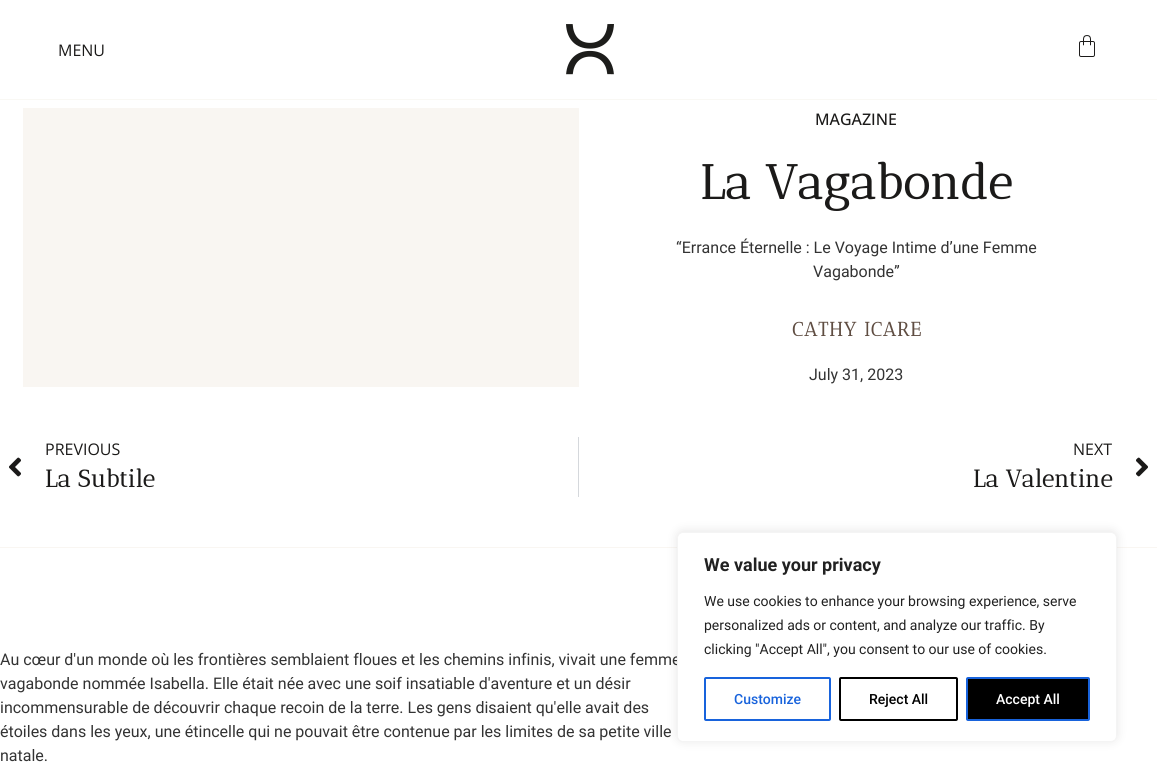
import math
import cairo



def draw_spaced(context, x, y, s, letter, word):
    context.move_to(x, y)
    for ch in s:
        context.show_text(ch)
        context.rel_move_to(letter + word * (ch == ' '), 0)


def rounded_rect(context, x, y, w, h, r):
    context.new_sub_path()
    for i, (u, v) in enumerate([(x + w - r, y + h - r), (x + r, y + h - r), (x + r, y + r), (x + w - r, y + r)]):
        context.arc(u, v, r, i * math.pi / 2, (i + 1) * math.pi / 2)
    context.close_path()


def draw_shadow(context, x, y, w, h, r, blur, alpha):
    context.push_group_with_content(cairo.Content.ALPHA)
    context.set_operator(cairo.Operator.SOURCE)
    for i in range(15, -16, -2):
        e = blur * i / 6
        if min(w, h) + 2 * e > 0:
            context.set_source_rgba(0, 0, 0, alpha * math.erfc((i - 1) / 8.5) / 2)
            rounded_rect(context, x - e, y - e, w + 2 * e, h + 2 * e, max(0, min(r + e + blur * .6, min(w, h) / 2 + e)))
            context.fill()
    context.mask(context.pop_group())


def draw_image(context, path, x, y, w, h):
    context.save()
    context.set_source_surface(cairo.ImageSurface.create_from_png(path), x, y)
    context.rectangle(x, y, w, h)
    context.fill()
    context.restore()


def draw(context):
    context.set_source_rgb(1, 1, 1)
    context.paint()
    context.set_source_rgb(249 / 255, 248 / 255, 244 / 255)
    context.rectangle(0, 99, 1157, 1)
    context.fill()
    draw_image(context, "images/1.png", 566, 24, 48, 51)
    draw_image(context, "images/2.png", 1079, 35, 16, 22)
    context.set_source_rgb(249 / 255, 246 / 255, 242 / 255)
    context.rectangle(23, 108, 556, 279)
    context.fill()
    draw_image(context, "images/3.png", 9, 457, 12, 20)
    context.set_source_rgb(213 / 255, 216 / 255, 220 / 255)
    context.rectangle(578, 437, 1, 60)
    context.fill()
    draw_image(context, "images/4.png", 1136, 457, 12, 20)
    context.set_source_rgb(249 / 255, 246 / 255, 242 / 255)
    context.rectangle(0, 547, 1157, 1)
    context.fill()
    context.set_source_rgb(172 / 255, 171 / 255, 171 / 255)
    draw_shadow(context, 677, 531, 440, 210, 6, 5, 0.3)
    context.select_font_face("Open Sans")
    context.set_font_size(16)
    context.set_source_rgb(27 / 255, 26 / 255, 25 / 255)
    context.move_to(58, 56)
    context.show_text("MENU")
    context.select_font_face("Open Sans Medium")
    context.move_to(815, 125)
    context.show_text("MAGAZINE")
    context.select_font_face("Antic Didone", cairo.FontSlant.NORMAL, cairo.FontWeight.BOLD)
    context.set_font_size(48)
    context.move_to(700, 199)
    context.show_text("La Vagabonde")
    context.select_font_face("Roboto")
    context.set_font_size(16)
    context.set_source_rgb(51 / 255, 51 / 255, 51 / 255)
    context.move_to(676, 253)
    context.show_text("“Errance Éternelle : Le Voyage Intime d’une Femme")
    context.move_to(813, 277)
    context.show_text("Vagabonde”")
    context.select_font_face("Antic Didone", cairo.FontSlant.NORMAL, cairo.FontWeight.BOLD)
    context.set_font_size(19.5)
    context.set_source_rgb(95 / 255, 77 / 255, 66 / 255)
    draw_spaced(context, 792, 336, "CATHY ICARE", 1, 0)
    context.select_font_face("Roboto")
    context.set_font_size(16)
    context.set_source_rgb(51 / 255, 51 / 255, 51 / 255)
    context.move_to(809, 380)
    context.show_text("July 31, 2023")
    context.select_font_face("Open Sans")
    context.set_source_rgb(27 / 255, 26 / 255, 25 / 255)
    context.move_to(45, 455)
    context.show_text("PREVIOUS")
    context.select_font_face("Antic Didone", cairo.FontSlant.NORMAL, cairo.FontWeight.BOLD)
    context.set_font_size(24)
    context.move_to(45, 487)
    context.show_text("La Subtile")
    context.select_font_face("Open Sans")
    context.set_font_size(16)
    context.move_to(1073, 455)
    context.show_text("NEXT")
    context.select_font_face("Antic Didone", cairo.FontSlant.NORMAL, cairo.FontWeight.BOLD)
    context.set_font_size(24)
    context.move_to(973, 487)
    context.show_text("La Valentine")
    context.select_font_face("Roboto")
    context.set_font_size(16)
    context.set_source_rgb(51 / 255, 51 / 255, 51 / 255)
    context.move_to(0, 665)
    context.show_text("Au cœur d'un monde où les frontières semblaient floues et les chemins infinis, vivait une femme")
    context.move_to(0, 689)
    context.show_text("vagabonde nommée Isabella. Elle était née avec une soif insatiable d'aventure et un désir")
    context.move_to(0, 713)
    context.show_text("incommensurable de découvrir chaque recoin de la terre. Les gens disaient qu'elle avait des")
    context.move_to(0, 737)
    context.show_text("étoiles dans les yeux, une étincelle qui ne pouvait être contenue par les limites de sa petite ville")
    context.move_to(0, 761)
    context.show_text("natale.")
    context.set_source_rgb(1, 1, 1)
    rounded_rect(context, 677.5, 532.5, 439, 209, 5.5)
    context.fill_preserve()
    context.set_source_rgb(244 / 255, 244 / 255, 244 / 255)
    context.set_line_width(1)
    context.stroke()
    context.select_font_face("Roboto", cairo.FontSlant.NORMAL, cairo.FontWeight.BOLD)
    context.set_font_size(18)
    context.set_source_rgb(33 / 255, 33 / 255, 33 / 255)
    context.move_to(704, 571)
    context.show_text("We value your privacy")
    context.select_font_face("Roboto")
    context.set_font_size(14)
    context.move_to(704, 606)
    context.show_text("We use cookies to enhance your browsing experience, serve")
    context.move_to(704, 630)
    context.show_text("personalized ads or content, and analyze our traffic. By")
    context.move_to(704, 654)
    context.show_text("clicking \"Accept All\", you consent to our use of cookies.")
    rounded_rect(context, 705, 678, 125, 42, 1)
    context.set_source_rgb(24 / 255, 99 / 255, 220 / 255)
    context.set_line_width(2)
    context.stroke()
    context.select_font_face("Roboto Medium")
    context.move_to(734, 704)
    context.show_text("Customize")
    rounded_rect(context, 840, 678, 117, 42, 1)
    context.set_source_rgb(0, 0, 0)
    context.stroke()
    context.move_to(869, 704)
    context.show_text("Reject All")
    rounded_rect(context, 967, 678, 122, 42, 1)
    context.fill_preserve()
    context.set_source_rgb(24 / 255, 99 / 255, 220 / 255)
    context.stroke()
    context.set_source_rgb(1, 1, 1)
    context.move_to(996, 704)
    context.show_text("Accept All")


surface = cairo.ImageSurface(cairo.Format.RGB24, 1157, 782)
context = cairo.Context(surface)
options = cairo.FontOptions()
options.set_hint_metrics(cairo.HintMetrics.OFF)
options.set_hint_style(cairo.HintStyle.NONE)
context.set_font_options(options)
context.set_miter_limit(4)
draw(context)
surface.write_to_png("out.png")
